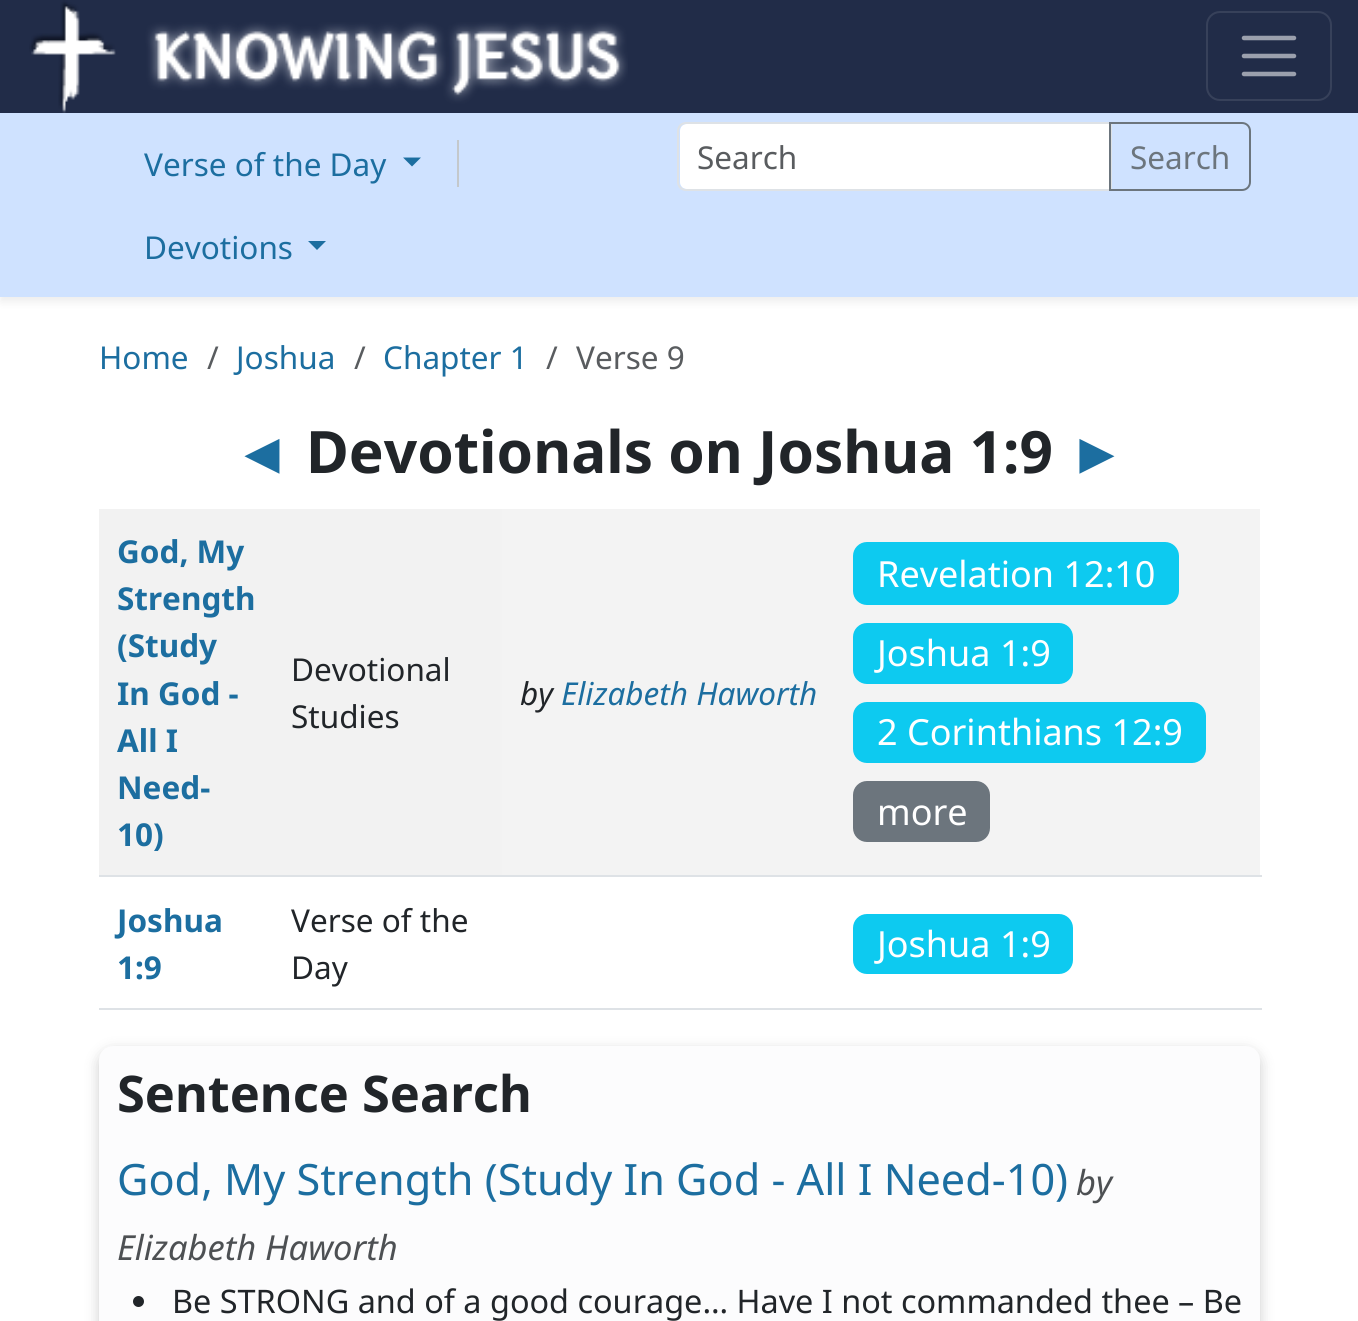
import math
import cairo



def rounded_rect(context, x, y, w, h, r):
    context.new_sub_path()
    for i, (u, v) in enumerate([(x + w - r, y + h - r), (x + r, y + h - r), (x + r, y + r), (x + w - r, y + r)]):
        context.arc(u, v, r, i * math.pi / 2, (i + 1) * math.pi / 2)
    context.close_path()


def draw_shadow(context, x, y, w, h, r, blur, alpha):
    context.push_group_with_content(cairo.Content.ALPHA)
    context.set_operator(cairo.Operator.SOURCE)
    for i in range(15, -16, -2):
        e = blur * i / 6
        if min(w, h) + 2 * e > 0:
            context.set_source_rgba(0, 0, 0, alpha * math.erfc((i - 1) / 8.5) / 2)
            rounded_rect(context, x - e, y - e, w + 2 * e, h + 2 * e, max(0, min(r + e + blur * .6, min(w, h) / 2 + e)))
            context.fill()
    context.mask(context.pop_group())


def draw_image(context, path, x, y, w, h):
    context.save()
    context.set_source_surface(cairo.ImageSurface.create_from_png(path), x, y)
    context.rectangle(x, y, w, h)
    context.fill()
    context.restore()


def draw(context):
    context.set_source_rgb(1, 1, 1)
    context.paint()
    context.set_source_rgb(0, 0, 0)
    draw_shadow(context, 0, 117, 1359, 185, 0, 4.5, 0.07)
    context.set_source_rgb(33 / 255, 44 / 255, 72 / 255)
    context.rectangle(0, 0, 1358, 113)
    context.fill()
    draw_image(context, "images/1.png", 29, 0, 599, 113)
    rounded_rect(context, 1207, 12, 124, 88, 13)
    context.set_source_rgb(55 / 255, 65 / 255, 90 / 255)
    context.stroke()
    context.new_path()
    context.move_to(1244, 38)
    context.line_to(1294, 38)
    context.move_to(1244, 56)
    context.line_to(1294, 56)
    context.move_to(1244, 74)
    context.line_to(1294, 74)
    context.set_source_rgb(155 / 255, 160 / 255, 173 / 255)
    context.set_line_width(4.5)
    context.set_line_cap(cairo.LineCap.ROUND)
    context.stroke()
    context.set_source_rgb(207 / 255, 226 / 255, 1)
    context.rectangle(0, 113, 1358, 184)
    context.fill()
    context.set_source_rgb(28 / 255, 110 / 255, 160 / 255)
    context.new_path()
    context.move_to(403, 157.5)
    context.line_to(421, 157.5)
    context.line_to(412, 166.5)
    context.close_path()
    context.fill()
    context.set_source_rgb(196 / 255, 200 / 255, 203 / 255)
    context.rectangle(457, 140, 2, 47)
    context.fill()
    context.set_source_rgb(28 / 255, 110 / 255, 160 / 255)
    context.new_path()
    context.move_to(308, 241)
    context.line_to(326, 241)
    context.line_to(317, 250)
    context.close_path()
    context.fill()
    context.set_source_rgb(1, 1, 1)
    context.new_path()
    context.move_to(687, 124)
    context.line_to(1109, 124)
    context.line_to(1109, 189)
    context.line_to(687, 189)
    context.curve_to(683, 189, 680, 186, 680, 182)
    context.line_to(680, 131)
    context.curve_to(680, 127, 683, 124, 687, 124)
    context.close_path()
    context.fill()
    context.new_path()
    context.move_to(686, 123)
    context.line_to(1111, 123)
    context.line_to(1111, 190)
    context.line_to(686, 190)
    context.curve_to(681.5, 190, 678, 186.5, 678, 182)
    context.line_to(678, 131)
    context.curve_to(678, 126.5, 681.5, 123, 686, 123)
    context.close_path()
    context.set_source_rgb(222 / 255, 226 / 255, 230 / 255)
    context.set_line_width(2)
    context.set_line_cap(cairo.LineCap.BUTT)
    context.stroke()
    context.new_path()
    context.move_to(1110, 123)
    context.line_to(1242, 123)
    context.curve_to(1246.5, 123, 1250, 126.5, 1250, 131)
    context.line_to(1250, 182)
    context.curve_to(1250, 186.5, 1246.5, 190, 1242, 190)
    context.line_to(1110, 190)
    context.close_path()
    context.set_source_rgb(108 / 255, 117 / 255, 125 / 255)
    context.stroke()
    context.set_source_rgb(242 / 255, 242 / 255, 242 / 255)
    context.rectangle(99, 509, 403, 366)
    context.fill()
    context.set_source_rgb(243 / 255, 243 / 255, 243 / 255)
    context.rectangle(502, 509, 758, 366)
    context.fill()
    context.set_source_rgb(222 / 255, 226 / 255, 230 / 255)
    context.rectangle(99, 875, 1163, 2)
    context.fill()
    context.set_source_rgb(13 / 255, 202 / 255, 240 / 255)
    rounded_rect(context, 853, 542, 326, 63, 14)
    context.fill()
    rounded_rect(context, 853, 623, 220, 61, 14)
    context.fill()
    rounded_rect(context, 853, 702, 353, 61, 14)
    context.fill()
    context.set_source_rgb(108 / 255, 117 / 255, 125 / 255)
    rounded_rect(context, 853, 781, 137, 61, 14)
    context.fill()
    context.set_source_rgb(222 / 255, 226 / 255, 230 / 255)
    context.rectangle(99, 1008, 1163, 2)
    context.fill()
    context.set_source_rgb(13 / 255, 202 / 255, 240 / 255)
    rounded_rect(context, 853, 914, 220, 60, 14)
    context.fill()
    context.set_source_rgb(0, 0, 0)
    draw_shadow(context, 99, 1051, 1161, 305, 14, 7, 0.2)
    context.set_source_rgb(252 / 255, 252 / 255, 253 / 255)
    rounded_rect(context, 99, 1046, 1161, 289, 14)
    context.fill()
    context.set_source_rgb(33 / 255, 37 / 255, 41 / 255)
    context.arc(138.5, 1301.5, 5.5, 0, 2 * math.pi)
    context.fill()
    context.select_font_face("Noto Sans")
    context.set_font_size(31.5)
    context.set_source_rgb(28 / 255, 110 / 255, 160 / 255)
    context.move_to(144, 176)
    context.show_text("Verse of the Day")
    context.move_to(144, 259)
    context.show_text("Devotions")
    context.set_source_rgb(89 / 255, 92 / 255, 95 / 255)
    context.move_to(697, 169)
    context.show_text("Search")
    context.set_source_rgb(108 / 255, 117 / 255, 125 / 255)
    context.move_to(1130, 169)
    context.show_text("Search")
    context.set_source_rgb(28 / 255, 110 / 255, 160 / 255)
    context.move_to(99, 369)
    context.show_text("Home")
    context.set_source_rgb(89 / 255, 92 / 255, 95 / 255)
    context.move_to(207, 369)
    context.show_text("/")
    context.set_source_rgb(28 / 255, 110 / 255, 160 / 255)
    context.move_to(236, 369)
    context.show_text("Joshua")
    context.set_source_rgb(89 / 255, 92 / 255, 95 / 255)
    context.move_to(354, 369)
    context.show_text("/")
    context.set_source_rgb(28 / 255, 110 / 255, 160 / 255)
    context.move_to(383, 369)
    context.show_text("Chapter 1")
    context.set_source_rgb(89 / 255, 92 / 255, 95 / 255)
    context.move_to(546, 369)
    context.show_text("/")
    context.move_to(576, 369)
    context.show_text("Verse 9")
    context.select_font_face("Liberation Sans", cairo.FontSlant.NORMAL, cairo.FontWeight.BOLD)
    context.set_font_size(58.5)
    context.set_source_rgb(28 / 255, 110 / 255, 160 / 255)
    context.move_to(233, 473)
    context.show_text("◄")
    context.select_font_face("Noto Sans", cairo.FontSlant.NORMAL, cairo.FontWeight.BOLD)
    context.set_source_rgb(33 / 255, 37 / 255, 41 / 255)
    context.move_to(306, 473)
    context.show_text("Devotionals on Joshua 1:9")
    context.select_font_face("Liberation Sans", cairo.FontSlant.NORMAL, cairo.FontWeight.BOLD)
    context.set_source_rgb(28 / 255, 110 / 255, 160 / 255)
    context.move_to(1068, 473)
    context.show_text("►")
    context.select_font_face("Noto Sans", cairo.FontSlant.NORMAL, cairo.FontWeight.BOLD)
    context.set_font_size(31.5)
    context.move_to(117, 563)
    context.show_text("God, My")
    context.move_to(117, 610)
    context.show_text("Strength")
    context.move_to(117, 657)
    context.show_text("(Study")
    context.move_to(117, 705)
    context.show_text("In God -")
    context.move_to(117, 752)
    context.show_text("All I")
    context.move_to(117, 799)
    context.show_text("Need-")
    context.move_to(117, 846)
    context.show_text("10)")
    context.select_font_face("Noto Sans")
    context.set_source_rgb(33 / 255, 37 / 255, 41 / 255)
    context.move_to(291, 681)
    context.show_text("Devotional")
    context.move_to(291, 728)
    context.show_text("Studies")
    context.select_font_face("Noto Sans", cairo.FontSlant.ITALIC)
    context.move_to(520, 705)
    context.show_text("by")
    context.set_source_rgb(28 / 255, 110 / 255, 160 / 255)
    context.move_to(561, 705)
    context.show_text("Elizabeth Haworth")
    context.select_font_face("Noto Sans")
    context.set_font_size(36)
    context.set_source_rgb(1, 1, 1)
    context.move_to(877, 587)
    context.show_text("Revelation 12:10")
    context.move_to(877, 666)
    context.show_text("Joshua 1:9")
    context.move_to(877, 745)
    context.show_text("2 Corinthians 12:9")
    context.move_to(877, 825)
    context.show_text("more")
    context.select_font_face("Noto Sans", cairo.FontSlant.NORMAL, cairo.FontWeight.BOLD)
    context.set_font_size(31.5)
    context.set_source_rgb(28 / 255, 110 / 255, 160 / 255)
    context.move_to(117, 932)
    context.show_text("Joshua")
    context.move_to(117, 979)
    context.show_text("1:9")
    context.select_font_face("Noto Sans")
    context.set_source_rgb(33 / 255, 37 / 255, 41 / 255)
    context.move_to(291, 932)
    context.show_text("Verse of the")
    context.move_to(291, 979)
    context.show_text("Day")
    context.set_font_size(36)
    context.set_source_rgb(1, 1, 1)
    context.move_to(877, 957)
    context.show_text("Joshua 1:9")
    context.select_font_face("Noto Sans", cairo.FontSlant.NORMAL, cairo.FontWeight.BOLD)
    context.set_font_size(50.5)
    context.set_source_rgb(33 / 255, 37 / 255, 41 / 255)
    context.move_to(117, 1112)
    context.show_text("Sentence Search")
    context.select_font_face("Noto Sans")
    context.set_font_size(43.2)
    context.set_source_rgb(28 / 255, 110 / 255, 160 / 255)
    context.move_to(117, 1195)
    context.show_text("God, My Strength (Study In God - All I Need-10)")
    context.select_font_face("Noto Sans", cairo.FontSlant.ITALIC)
    context.set_font_size(34.5)
    context.set_source_rgb(77 / 255, 80 / 255, 83 / 255)
    context.move_to(1076, 1195)
    context.show_text("by")
    context.move_to(117, 1260)
    context.show_text("Elizabeth Haworth")
    context.select_font_face("Noto Sans")
    context.set_font_size(32.4)
    context.set_source_rgb(33 / 255, 37 / 255, 41 / 255)
    context.move_to(172, 1313)
    context.show_text("Be STRONG and of a good courage… Have I not commanded thee – Be")


surface = cairo.ImageSurface(cairo.Format.RGB24, 1358, 1321)
context = cairo.Context(surface)
options = cairo.FontOptions()
options.set_hint_metrics(cairo.HintMetrics.OFF)
options.set_hint_style(cairo.HintStyle.NONE)
context.set_font_options(options)
context.set_miter_limit(4)
draw(context)
surface.write_to_png("out.png")
